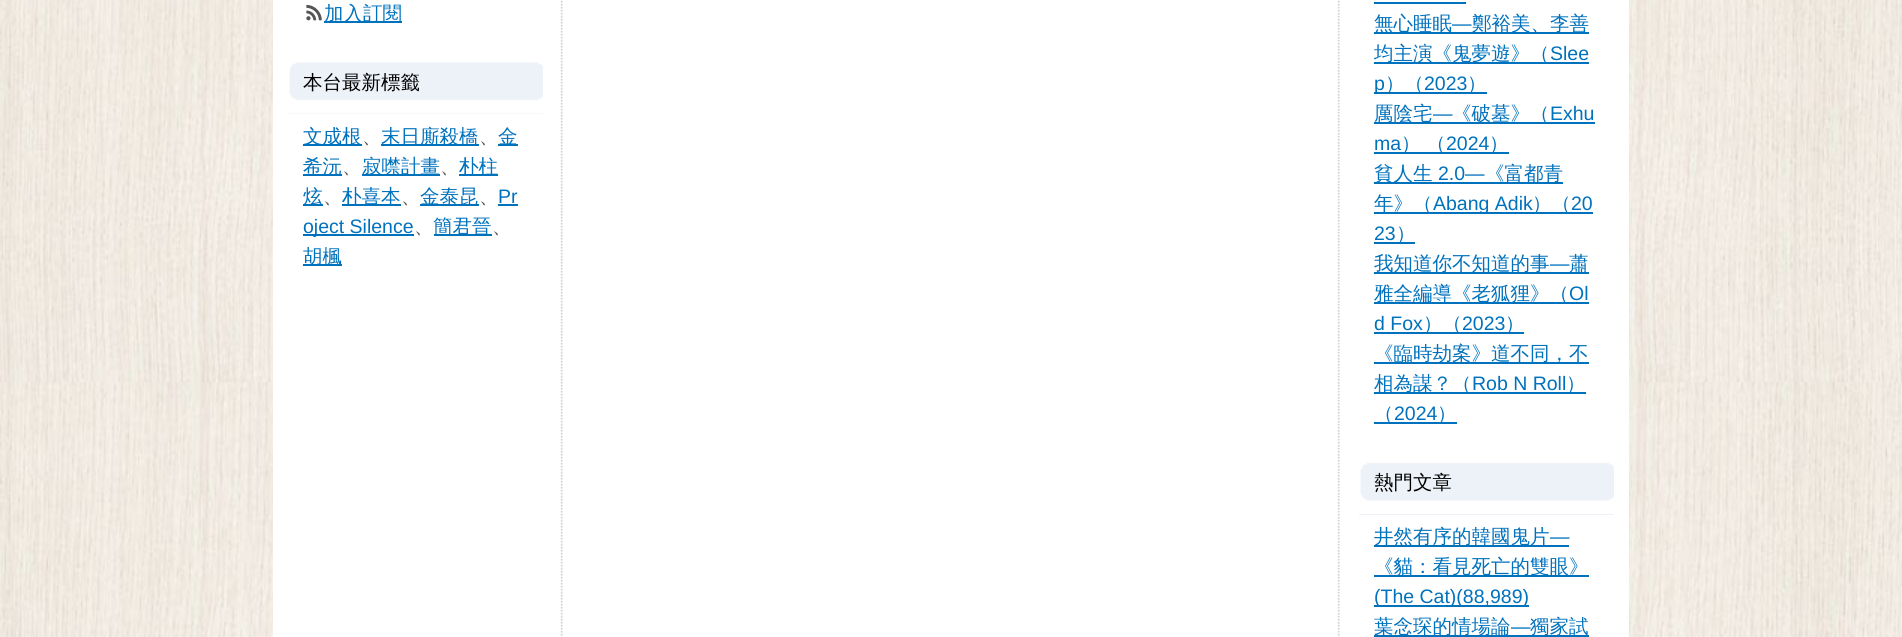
import math
import cairo



def draw_image(context, path, x, y, w, h):
    context.save()
    context.set_source_surface(cairo.ImageSurface.create_from_png(path), x, y)
    context.rectangle(x, y, w, h)
    context.fill()
    context.restore()


def draw(context):
    context.set_source_rgb(1, 1, 1)
    context.paint()
    draw_image(context, "images/1.png", 0, 0, 1902, 637)
    draw_image(context, "images/2.png", 273, 0, 1356, 637)
    context.set_source_rgb(0, 113 / 255, 188 / 255)
    context.rectangle(324, 21, 78, 2)
    context.fill()
    context.set_source_rgb(237 / 255, 242 / 255, 248 / 255)
    context.rectangle(288, 62, 255, 52)
    context.fill()
    draw_image(context, "images/3.png", 288, 51, 255, 63)
    context.set_source_rgb(0, 113 / 255, 188 / 255)
    context.rectangle(303, 144, 59, 2)
    context.fill()
    context.rectangle(381, 144, 98, 2)
    context.fill()
    context.rectangle(498, 144, 20, 2)
    context.fill()
    context.rectangle(303, 174, 39, 2)
    context.fill()
    context.rectangle(362, 174, 78, 2)
    context.fill()
    context.rectangle(459, 174, 39, 2)
    context.fill()
    context.rectangle(303, 204, 20, 2)
    context.fill()
    context.rectangle(342, 204, 59, 2)
    context.fill()
    context.rectangle(420, 204, 59, 2)
    context.fill()
    context.rectangle(498, 204, 20, 2)
    context.fill()
    context.rectangle(303, 234, 111, 2)
    context.fill()
    context.rectangle(434, 234, 58, 2)
    context.fill()
    context.rectangle(303, 264, 39, 2)
    context.fill()
    context.rectangle(1374, 2, 92, 2)
    context.fill()
    context.rectangle(1374, 32, 215, 2)
    context.fill()
    context.rectangle(1374, 62, 215, 2)
    context.fill()
    context.rectangle(1374, 92, 113, 2)
    context.fill()
    context.rectangle(1374, 122, 221, 2)
    context.fill()
    context.rectangle(1374, 152, 135, 2)
    context.fill()
    context.rectangle(1374, 182, 189, 2)
    context.fill()
    context.rectangle(1374, 212, 219, 2)
    context.fill()
    context.rectangle(1374, 242, 41, 2)
    context.fill()
    context.rectangle(1374, 272, 215, 2)
    context.fill()
    context.rectangle(1374, 302, 215, 2)
    context.fill()
    context.rectangle(1374, 332, 150, 2)
    context.fill()
    context.rectangle(1374, 362, 215, 2)
    context.fill()
    context.rectangle(1374, 392, 212, 2)
    context.fill()
    context.rectangle(1374, 422, 83, 2)
    context.fill()
    context.set_source_rgb(237 / 255, 242 / 255, 248 / 255)
    context.rectangle(1359, 462, 255, 53)
    context.fill()
    draw_image(context, "images/4.png", 1359, 452, 255, 62)
    context.set_source_rgb(0, 113 / 255, 188 / 255)
    context.rectangle(1374, 545, 195, 2)
    context.fill()
    context.rectangle(1374, 575, 215, 2)
    context.fill()
    context.rectangle(1374, 605, 155, 2)
    context.fill()
    context.rectangle(1374, 635, 215, 2)
    context.fill()
    context.select_font_face("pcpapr")
    context.set_font_size(19.5)
    context.set_source_rgb(85 / 255, 85 / 255, 85 / 255)
    context.move_to(305, 20)
    context.show_text(")")
    context.select_font_face("WenQuanYi Zen Hei Medium")
    context.set_source_rgb(0, 113 / 255, 188 / 255)
    context.move_to(324, 20)
    context.show_text("加入訂閱")
    context.set_source_rgb(0, 0, 0)
    context.move_to(303, 89)
    context.show_text("本台最新標籤")
    context.set_source_rgb(0, 113 / 255, 188 / 255)
    context.move_to(303, 143)
    context.show_text("文成根")
    context.set_source_rgb(85 / 255, 85 / 255, 85 / 255)
    context.move_to(362, 143)
    context.show_text("、")
    context.set_source_rgb(0, 113 / 255, 188 / 255)
    context.move_to(381, 143)
    context.show_text("末日廝殺橋")
    context.set_source_rgb(85 / 255, 85 / 255, 85 / 255)
    context.move_to(479, 143)
    context.show_text("、")
    context.set_source_rgb(0, 113 / 255, 188 / 255)
    context.move_to(498, 143)
    context.show_text("金")
    context.move_to(303, 173)
    context.show_text("希沅")
    context.set_source_rgb(85 / 255, 85 / 255, 85 / 255)
    context.move_to(342, 173)
    context.show_text("、")
    context.set_source_rgb(0, 113 / 255, 188 / 255)
    context.move_to(362, 173)
    context.show_text("寂噤計畫")
    context.set_source_rgb(85 / 255, 85 / 255, 85 / 255)
    context.move_to(440, 173)
    context.show_text("、")
    context.set_source_rgb(0, 113 / 255, 188 / 255)
    context.move_to(459, 173)
    context.show_text("朴柱")
    context.move_to(303, 203)
    context.show_text("炫")
    context.move_to(342, 203)
    context.show_text("朴喜本")
    context.move_to(420, 203)
    context.show_text("金泰昆")
    context.select_font_face("Liberation Sans")
    context.move_to(498, 203)
    context.show_text("Pr")
    context.select_font_face("WenQuanYi Zen Hei Medium")
    context.set_source_rgb(85 / 255, 85 / 255, 85 / 255)
    context.move_to(323, 203)
    context.show_text("、")
    context.move_to(401, 203)
    context.show_text("、")
    context.move_to(479, 203)
    context.show_text("、")
    context.select_font_face("Liberation Sans")
    context.set_source_rgb(0, 113 / 255, 188 / 255)
    context.move_to(303, 233)
    context.show_text("oject Silence")
    context.select_font_face("WenQuanYi Zen Hei Medium")
    context.set_source_rgb(85 / 255, 85 / 255, 85 / 255)
    context.move_to(414, 233)
    context.show_text("、")
    context.set_source_rgb(0, 113 / 255, 188 / 255)
    context.move_to(433, 233)
    context.show_text("簡君晉")
    context.set_source_rgb(85 / 255, 85 / 255, 85 / 255)
    context.move_to(492, 233)
    context.show_text("、")
    context.set_source_rgb(0, 113 / 255, 188 / 255)
    context.move_to(303, 263)
    context.show_text("胡楓")
    context.move_to(1374, 30)
    context.show_text("無心睡眠")
    context.select_font_face("Liberation Sans")
    context.move_to(1452, 30)
    context.show_text("—")
    context.select_font_face("WenQuanYi Zen Hei Medium")
    context.move_to(1472, 30)
    context.show_text("鄭裕美、李善")
    context.move_to(1374, 60)
    context.show_text("均主演《鬼夢遊》（")
    context.select_font_face("Liberation Sans")
    context.move_to(1550, 60)
    context.show_text("Slee")
    context.move_to(1374, 90)
    context.show_text("p")
    context.select_font_face("WenQuanYi Zen Hei Medium")
    context.move_to(1385, 90)
    context.show_text("）（")
    context.select_font_face("Liberation Sans")
    context.move_to(1424, 90)
    context.show_text("2023")
    context.select_font_face("WenQuanYi Zen Hei Medium")
    context.move_to(1467, 90)
    context.show_text("）")
    context.move_to(1374, 120)
    context.show_text("厲陰宅")
    context.select_font_face("Liberation Sans")
    context.move_to(1433, 120)
    context.show_text("—")
    context.select_font_face("WenQuanYi Zen Hei Medium")
    context.move_to(1452, 120)
    context.show_text("《破墓》（")
    context.select_font_face("Liberation Sans")
    context.move_to(1550, 120)
    context.show_text("Exhu")
    context.move_to(1374, 150)
    context.show_text("ma")
    context.select_font_face("WenQuanYi Zen Hei Medium")
    context.move_to(1401, 150)
    context.show_text("） （")
    context.select_font_face("Liberation Sans")
    context.move_to(1446, 150)
    context.show_text("2024")
    context.select_font_face("WenQuanYi Zen Hei Medium")
    context.move_to(1489, 150)
    context.show_text("）")
    context.move_to(1374, 180)
    context.show_text("貧人生")
    context.select_font_face("Liberation Sans")
    context.move_to(1438, 180)
    context.show_text("2.0—")
    context.select_font_face("WenQuanYi Zen Hei Medium")
    context.move_to(1485, 180)
    context.show_text("《富都青")
    context.move_to(1374, 210)
    context.show_text("年》（")
    context.select_font_face("Liberation Sans")
    context.move_to(1433, 210)
    context.show_text("Abang Adik")
    context.select_font_face("WenQuanYi Zen Hei Medium")
    context.move_to(1532, 210)
    context.show_text("）（")
    context.select_font_face("Liberation Sans")
    context.move_to(1571, 210)
    context.show_text("20")
    context.move_to(1374, 240)
    context.show_text("23")
    context.select_font_face("WenQuanYi Zen Hei Medium")
    context.move_to(1396, 240)
    context.show_text("）")
    context.move_to(1374, 270)
    context.show_text("我知道你不知道的事")
    context.select_font_face("Liberation Sans")
    context.move_to(1550, 270)
    context.show_text("—")
    context.select_font_face("WenQuanYi Zen Hei Medium")
    context.move_to(1569, 270)
    context.show_text("蕭")
    context.move_to(1374, 300)
    context.show_text("雅全編導《老狐狸》（")
    context.select_font_face("Liberation Sans")
    context.move_to(1569, 300)
    context.show_text("Ol")
    context.move_to(1374, 330)
    context.show_text("d Fox")
    context.select_font_face("WenQuanYi Zen Hei Medium")
    context.move_to(1423, 330)
    context.show_text("）（")
    context.select_font_face("Liberation Sans")
    context.move_to(1462, 330)
    context.show_text("2023")
    context.select_font_face("WenQuanYi Zen Hei Medium")
    context.move_to(1505, 330)
    context.show_text("）")
    context.move_to(1374, 360)
    context.show_text("《臨時劫案》道不同，不")
    context.move_to(1374, 390)
    context.show_text("相為謀？（")
    context.select_font_face("Liberation Sans")
    context.move_to(1472, 390)
    context.show_text("Rob N Roll")
    context.select_font_face("WenQuanYi Zen Hei Medium")
    context.move_to(1566, 390)
    context.show_text("）")
    context.move_to(1374, 420)
    context.show_text("（")
    context.select_font_face("Liberation Sans")
    context.move_to(1394, 420)
    context.show_text("2024")
    context.select_font_face("WenQuanYi Zen Hei Medium")
    context.move_to(1437, 420)
    context.show_text("）")
    context.set_source_rgb(0, 0, 0)
    context.move_to(1374, 489)
    context.show_text("熱門文章")
    context.set_source_rgb(0, 113 / 255, 188 / 255)
    context.move_to(1374, 543)
    context.show_text("井然有序的韓國鬼片")
    context.select_font_face("Liberation Sans")
    context.move_to(1550, 543)
    context.show_text("—")
    context.select_font_face("WenQuanYi Zen Hei Medium")
    context.move_to(1374, 573)
    context.show_text("《貓：看見死亡的雙眼》")
    context.select_font_face("Liberation Sans")
    context.move_to(1374, 603)
    context.show_text("(The Cat)(88,989)")
    context.select_font_face("WenQuanYi Zen Hei Medium")
    context.move_to(1374, 633)
    context.show_text("葉念琛的情場論")
    context.select_font_face("Liberation Sans")
    context.move_to(1511, 633)
    context.show_text("—")
    context.select_font_face("WenQuanYi Zen Hei Medium")
    context.move_to(1530, 633)
    context.show_text("獨家試")


surface = cairo.ImageSurface(cairo.Format.RGB24, 1902, 637)
context = cairo.Context(surface)
options = cairo.FontOptions()
options.set_hint_metrics(cairo.HintMetrics.OFF)
options.set_hint_style(cairo.HintStyle.NONE)
context.set_font_options(options)
context.set_miter_limit(4)
draw(context)
surface.write_to_png("out.png")
